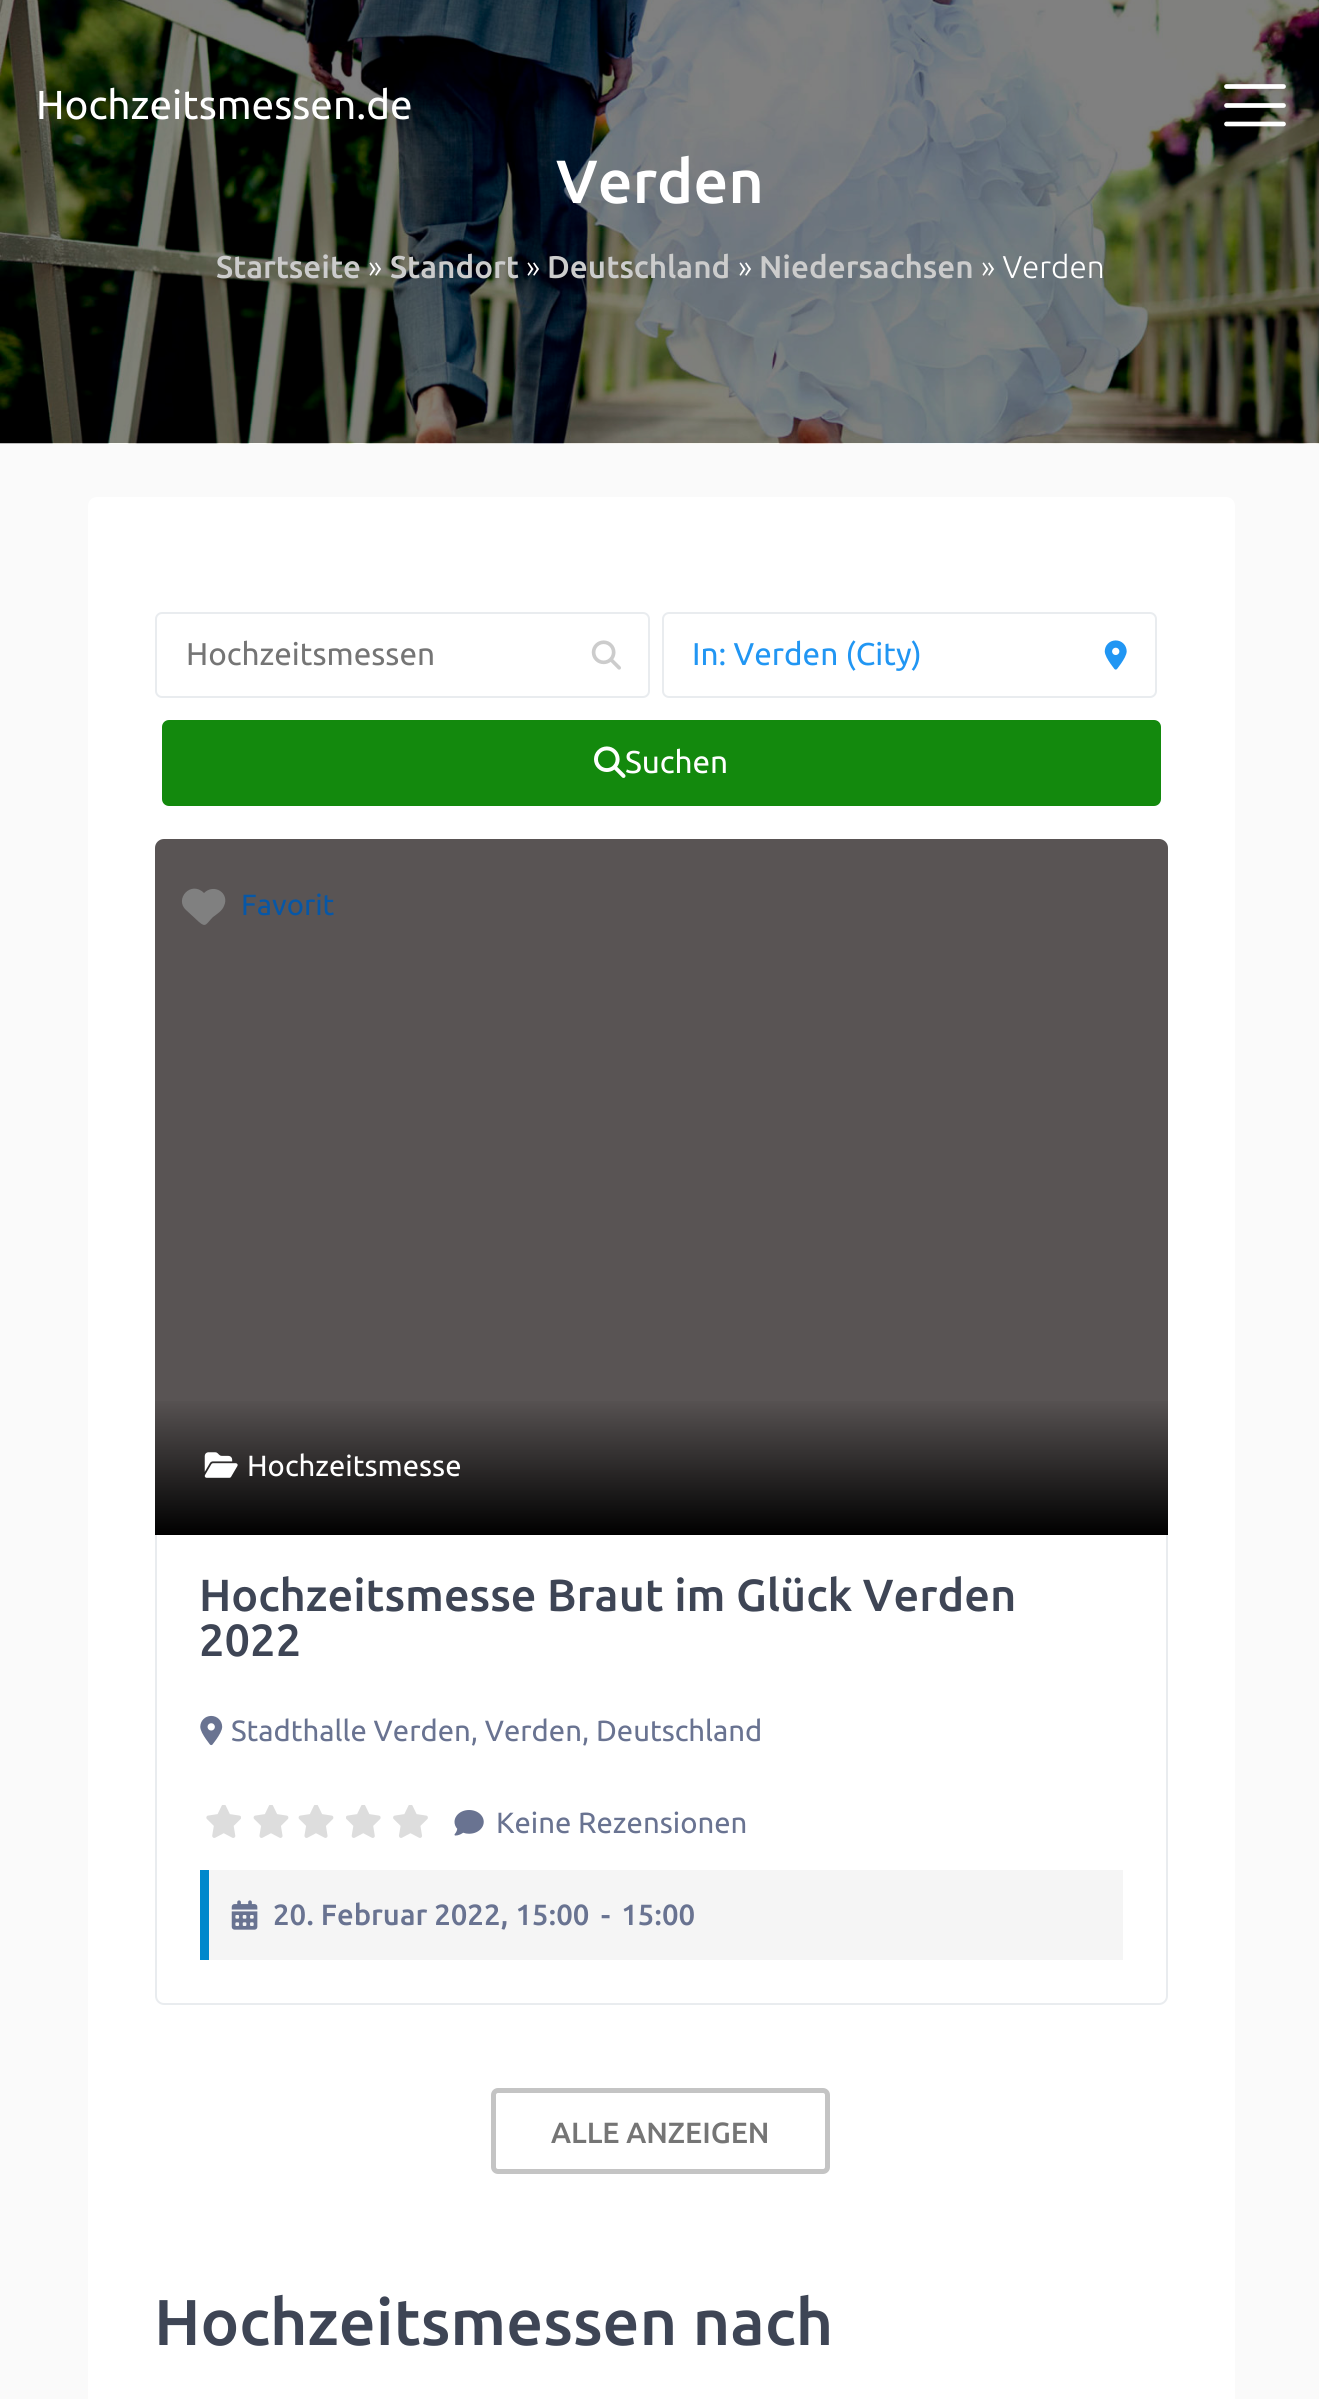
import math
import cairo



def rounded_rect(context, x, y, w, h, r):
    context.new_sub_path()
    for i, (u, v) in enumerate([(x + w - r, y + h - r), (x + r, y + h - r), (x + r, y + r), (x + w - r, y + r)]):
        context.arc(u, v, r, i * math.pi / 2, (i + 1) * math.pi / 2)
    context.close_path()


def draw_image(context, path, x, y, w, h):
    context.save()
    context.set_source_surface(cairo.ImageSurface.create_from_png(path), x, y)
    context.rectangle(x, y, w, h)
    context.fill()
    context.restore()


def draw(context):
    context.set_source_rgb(250 / 255, 250 / 255, 250 / 255)
    context.paint()
    draw_image(context, "images/1.png", 0, 0, 1319, 444)
    context.new_path()
    context.move_to(1226.5, 86.5)
    context.line_to(1283.5, 86.5)
    context.move_to(1226.5, 105.5)
    context.line_to(1283.5, 105.5)
    context.move_to(1226.5, 124)
    context.line_to(1283.5, 124)
    context.set_source_rgb(1, 1, 1)
    context.set_line_width(4.7)
    context.set_line_cap(cairo.LineCap.ROUND)
    context.stroke()
    rounded_rect(context, 88, 497, 1147, 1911, 9)
    context.fill()
    rounded_rect(context, 156, 613, 493, 84, 6)
    context.set_source_rgb(233 / 255, 236 / 255, 239 / 255)
    context.set_line_width(2)
    context.set_line_cap(cairo.LineCap.BUTT)
    context.stroke()
    draw_image(context, "images/2.png", 591, 640, 30, 30)
    rounded_rect(context, 663, 613, 493, 84, 6)
    context.stroke()
    draw_image(context, "images/3.png", 1104, 640, 23, 30)
    context.set_source_rgb(19 / 255, 137 / 255, 13 / 255)
    rounded_rect(context, 162, 720, 999, 86, 7)
    context.fill()
    draw_image(context, "images/4.png", 594, 746, 32, 32)
    rounded_rect(context, 156, 840, 1011, 1164, 8)
    context.set_source_rgb(233 / 255, 236 / 255, 239 / 255)
    context.stroke()
    context.set_source_rgb(89 / 255, 84 / 255, 84 / 255)
    context.new_path()
    context.move_to(164, 839)
    context.line_to(1159, 839)
    context.curve_to(1164, 839, 1168, 843, 1168, 848)
    context.line_to(1168, 1535)
    context.line_to(155, 1535)
    context.line_to(155, 848)
    context.curve_to(155, 843, 159, 839, 164, 839)
    context.close_path()
    context.fill()
    context.set_source_rgb(128 / 255, 128 / 255, 128 / 255)
    context.new_path()
    context.move_to(186, 910)
    context.line_to(201, 924)
    context.line_to(186, 910)
    context.line_to(199, 922)
    context.curve_to(206, 928, 206, 924, 213, 917)
    context.curve_to(217, 914, 222, 911, 224, 906)
    context.curve_to(230, 893, 214, 883, 204, 893)
    context.curve_to(191, 880, 174, 899, 186, 910)
    context.close_path()
    context.fill()
    gradient = cairo.LinearGradient(662, 1397, 662, 1535)
    gradient.add_color_stop_rgba(0, 89 / 255, 84 / 255, 84 / 255, 1)
    gradient.add_color_stop_rgba(1, 0, 0, 0, 1)
    context.set_source(gradient)
    context.rectangle(155, 1401, 1013, 134)
    context.fill()
    draw_image(context, "images/5.png", 204, 1452, 34, 26)
    draw_image(context, "images/6.png", 200, 1715, 23, 31)
    draw_image(context, "images/7.png", 206, 1805, 35, 33)
    draw_image(context, "images/8.png", 253, 1805, 36, 33)
    draw_image(context, "images/8.png", 298, 1805, 36, 33)
    draw_image(context, "images/9.png", 346, 1805, 35, 33)
    draw_image(context, "images/10.png", 393, 1805, 35, 33)
    draw_image(context, "images/11.png", 454, 1810, 30, 26)
    context.set_source_rgb(245 / 255, 245 / 255, 245 / 255)
    context.rectangle(209, 1870, 914, 90)
    context.fill()
    context.set_source_rgb(0, 136 / 255, 204 / 255)
    context.rectangle(200, 1870, 9, 90)
    context.fill()
    draw_image(context, "images/12.png", 231, 1900, 27, 30)
    rounded_rect(context, 493.5, 2090.5, 334, 81, 4.5)
    context.set_source_rgb(196 / 255, 196 / 255, 196 / 255)
    context.set_line_width(5)
    context.stroke()
    context.select_font_face("Ubuntu")
    context.set_font_size(40.5)
    context.set_source_rgb(1, 1, 1)
    context.move_to(36, 119)
    context.show_text("Hochzeitsmessen.de")
    context.select_font_face("Ubuntu Medium")
    context.set_font_size(61)
    context.move_to(556, 203)
    context.show_text("Verden")
    context.set_font_size(31.5)
    context.set_source_rgb(204 / 255, 204 / 255, 204 / 255)
    context.move_to(216, 278)
    context.show_text("Startseite")
    context.select_font_face("Ubuntu Light")
    context.set_source_rgb(1, 1, 1)
    context.move_to(368, 278)
    context.show_text("»")
    context.select_font_face("Ubuntu Medium")
    context.set_source_rgb(204 / 255, 204 / 255, 204 / 255)
    context.move_to(390, 278)
    context.show_text("Standort")
    context.select_font_face("Ubuntu Light")
    context.set_source_rgb(1, 1, 1)
    context.move_to(526, 278)
    context.show_text("»")
    context.select_font_face("Ubuntu Medium")
    context.set_source_rgb(204 / 255, 204 / 255, 204 / 255)
    context.move_to(547, 278)
    context.show_text("Deutschland")
    context.select_font_face("Ubuntu Light")
    context.set_source_rgb(1, 1, 1)
    context.move_to(738, 278)
    context.show_text("»")
    context.select_font_face("Ubuntu Medium")
    context.set_source_rgb(204 / 255, 204 / 255, 204 / 255)
    context.move_to(759, 278)
    context.show_text("Niedersachsen")
    context.select_font_face("Ubuntu Light")
    context.set_source_rgb(1, 1, 1)
    context.move_to(981, 278)
    context.show_text("» Verden")
    context.select_font_face("Ubuntu")
    context.set_source_rgb(117 / 255, 117 / 255, 117 / 255)
    context.move_to(186, 665)
    context.show_text("Hochzeitsmessen")
    context.set_source_rgb(33 / 255, 150 / 255, 243 / 255)
    context.move_to(692, 665)
    context.show_text("In: Verden (City)")
    context.set_source_rgb(1, 1, 1)
    context.move_to(625, 773)
    context.show_text("Suchen")
    context.set_font_size(29.25)
    context.set_source_rgb(7 / 255, 87 / 255, 166 / 255)
    context.move_to(241, 915)
    context.show_text("Favorit")
    context.set_source_rgb(1, 1, 1)
    context.move_to(247, 1476)
    context.show_text("Hochzeitsmesse")
    context.select_font_face("Ubuntu Medium")
    context.set_font_size(45)
    context.set_source_rgb(62 / 255, 69 / 255, 85 / 255)
    context.move_to(199, 1611)
    context.show_text("Hochzeitsmesse Braut im Glück Verden")
    context.move_to(199, 1656)
    context.show_text("2022")
    context.select_font_face("Ubuntu")
    context.set_font_size(29.25)
    context.set_source_rgb(105 / 255, 115 / 255, 145 / 255)
    context.move_to(231, 1741)
    context.show_text("Stadthalle Verden, Verden, Deutschland")
    context.move_to(496, 1833)
    context.show_text("Keine Rezensionen")
    context.select_font_face("Ubuntu Medium")
    context.move_to(273, 1925)
    context.show_text("20. Februar 2022, 15:00")
    context.move_to(601, 1925)
    context.show_text("-")
    context.move_to(621, 1925)
    context.show_text("15:00")
    context.set_source_rgb(117 / 255, 117 / 255, 117 / 255)
    context.move_to(551, 2143)
    context.show_text("ALLE ANZEIGEN")
    context.set_font_size(64.75)
    context.set_source_rgb(62 / 255, 69 / 255, 85 / 255)
    context.move_to(154, 2345)
    context.show_text("Hochzeitsmessen nach")


surface = cairo.ImageSurface(cairo.Format.RGB24, 1319, 2399)
context = cairo.Context(surface)
options = cairo.FontOptions()
options.set_hint_metrics(cairo.HintMetrics.OFF)
options.set_hint_style(cairo.HintStyle.NONE)
context.set_font_options(options)
context.set_miter_limit(4)
draw(context)
surface.write_to_png("out.png")
